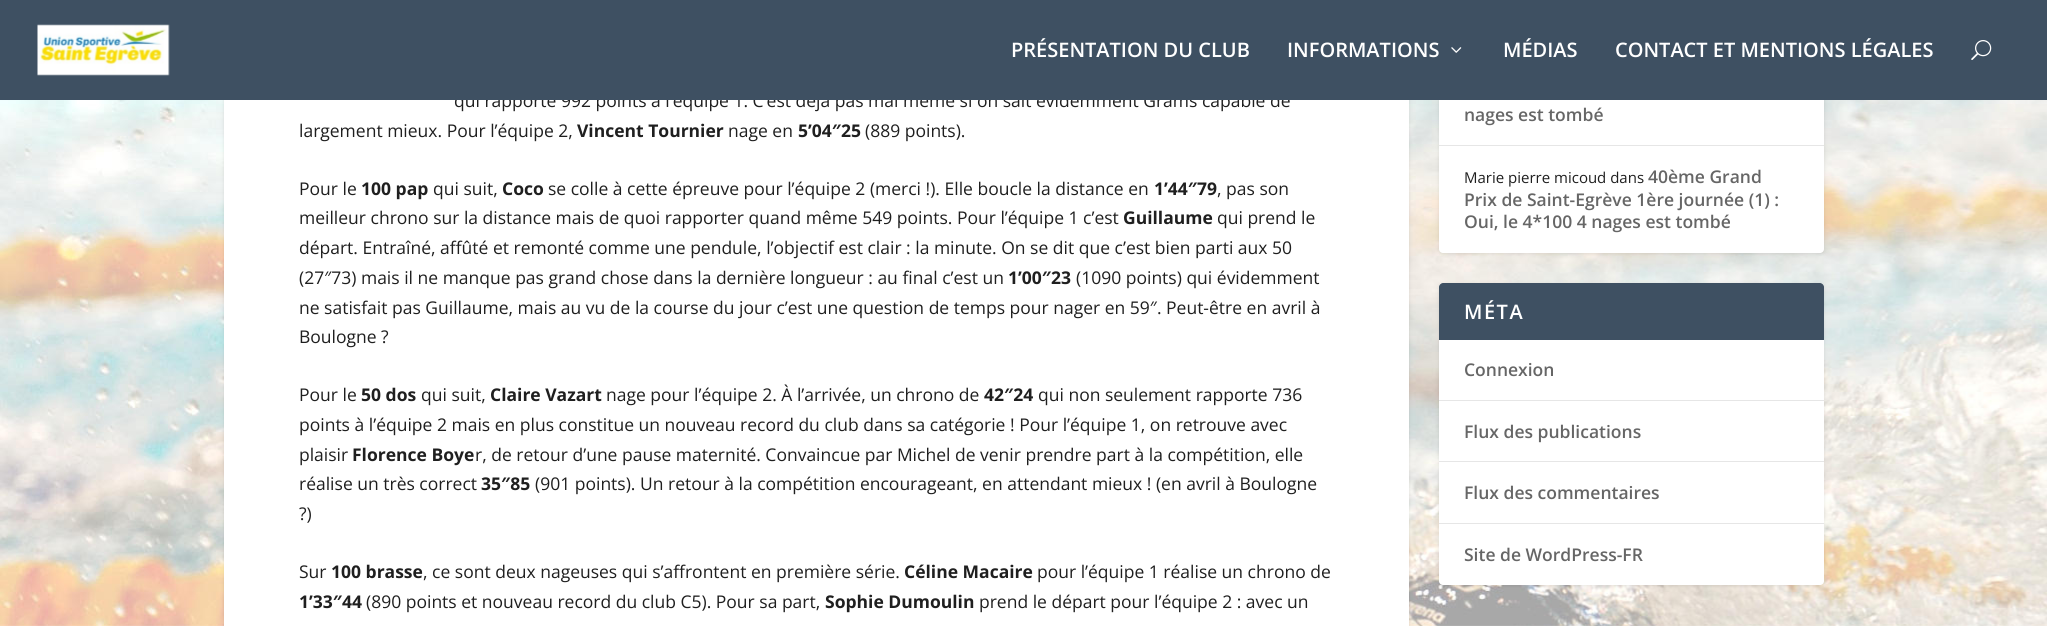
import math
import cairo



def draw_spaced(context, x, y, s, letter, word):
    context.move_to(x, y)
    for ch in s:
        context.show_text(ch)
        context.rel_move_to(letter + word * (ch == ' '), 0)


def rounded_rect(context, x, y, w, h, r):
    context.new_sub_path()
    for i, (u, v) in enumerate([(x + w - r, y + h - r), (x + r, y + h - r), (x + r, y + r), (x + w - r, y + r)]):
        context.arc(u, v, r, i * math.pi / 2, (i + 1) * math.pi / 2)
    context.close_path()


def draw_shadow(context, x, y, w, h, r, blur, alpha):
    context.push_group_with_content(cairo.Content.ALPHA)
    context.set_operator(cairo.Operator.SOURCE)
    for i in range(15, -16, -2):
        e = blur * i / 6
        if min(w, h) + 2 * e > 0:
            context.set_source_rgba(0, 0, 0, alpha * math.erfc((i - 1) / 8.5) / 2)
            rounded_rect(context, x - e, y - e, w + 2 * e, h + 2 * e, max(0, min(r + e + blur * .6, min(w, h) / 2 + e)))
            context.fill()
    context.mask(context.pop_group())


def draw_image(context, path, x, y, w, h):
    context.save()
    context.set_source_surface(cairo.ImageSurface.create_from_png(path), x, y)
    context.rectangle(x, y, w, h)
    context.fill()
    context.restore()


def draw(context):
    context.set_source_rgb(1, 1, 1)
    context.paint()
    draw_image(context, "images/1.png", 0, 100, 2047, 526)
    context.set_source_rgb(0, 0, 0)
    draw_shadow(context, 224, -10, 1185, 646, 4, 2, 0.1)
    context.set_source_rgb(1, 1, 1)
    context.rectangle(224, 100, 1185, 526)
    context.fill()
    context.set_source_rgb(0, 0, 0)
    draw_shadow(context, 1439, -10, 385, 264, 4, 2, 0.1)
    context.set_source_rgb(1, 1, 1)
    rounded_rect(context, 1439, -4, 385, 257, 4)
    context.fill()
    context.set_source_rgb(230 / 255, 230 / 255, 230 / 255)
    context.rectangle(1439, 145, 385, 1)
    context.fill()
    context.set_source_rgb(0, 0, 0)
    draw_shadow(context, 1439, 284, 385, 302, 4, 2, 0.1)
    context.set_source_rgb(1, 1, 1)
    rounded_rect(context, 1439, 283, 385, 302, 4)
    context.fill()
    context.set_source_rgb(62 / 255, 80 / 255, 98 / 255)
    context.new_path()
    context.move_to(1443, 283)
    context.line_to(1820, 283)
    context.curve_to(1822, 283, 1824, 285, 1824, 287)
    context.line_to(1824, 340)
    context.line_to(1439, 340)
    context.line_to(1439, 287)
    context.curve_to(1439, 285, 1441, 283, 1443, 283)
    context.close_path()
    context.fill()
    context.set_source_rgb(230 / 255, 230 / 255, 230 / 255)
    context.rectangle(1439, 400, 385, 1)
    context.fill()
    context.rectangle(1439, 461, 385, 1)
    context.fill()
    context.rectangle(1439, 523, 385, 1)
    context.fill()
    context.select_font_face("Open Sans")
    context.set_font_size(17.5)
    context.set_source_rgb(31 / 255, 31 / 255, 31 / 255)
    context.move_to(454, 107)
    context.show_text("qui rapporte 992 points à l’équipe 1. C’est déjà pas mal même si on sait évidemment Grams capable de")
    context.set_source_rgb(62 / 255, 80 / 255, 98 / 255)
    context.rectangle(0, 0, 2047, 100)
    context.fill()
    draw_image(context, "images/4.png", 1971, 40, 21, 20)
    context.select_font_face("Open Sans SemiBold")
    context.set_font_size(20)
    context.set_source_rgb(1, 1, 1)
    context.move_to(1615, 57)
    context.show_text("CONTACT ET MENTIONS LÉGALES")
    context.move_to(1503, 57)
    context.show_text("MÉDIAS")
    draw_image(context, "images/3.png", 1451, 47, 11, 6)
    context.move_to(1287, 57)
    context.show_text("INFORMATIONS")
    context.move_to(1011, 57)
    context.show_text("PRÉSENTATION DU CLUB")
    draw_image(context, "images/2.png", 37, 24, 133, 52)
    context.select_font_face("Open Sans")
    context.set_font_size(17.5)
    context.set_source_rgb(31 / 255, 31 / 255, 31 / 255)
    context.move_to(299, 137)
    context.show_text("largement mieux. Pour l’équipe 2,")
    context.select_font_face("Open Sans", cairo.FontSlant.NORMAL, cairo.FontWeight.BOLD)
    context.move_to(577, 137)
    context.show_text("Vincent Tournier")
    context.select_font_face("Open Sans")
    context.move_to(728, 137)
    context.show_text("nage en")
    context.select_font_face("Open Sans", cairo.FontSlant.NORMAL, cairo.FontWeight.BOLD)
    context.move_to(798, 137)
    context.show_text("5’04″25")
    context.select_font_face("Open Sans")
    context.move_to(865, 137)
    context.show_text("(889 points).")
    context.move_to(299, 195)
    context.show_text("Pour le")
    context.select_font_face("Open Sans", cairo.FontSlant.NORMAL, cairo.FontWeight.BOLD)
    context.move_to(361, 195)
    context.show_text("100 pap")
    context.select_font_face("Open Sans")
    context.move_to(433, 195)
    context.show_text("qui suit,")
    context.select_font_face("Open Sans", cairo.FontSlant.NORMAL, cairo.FontWeight.BOLD)
    context.move_to(502, 195)
    context.show_text("Coco")
    context.select_font_face("Open Sans")
    context.move_to(548, 195)
    context.show_text("se colle à cette épreuve pour l’équipe 2 (merci !). Elle boucle la distance en")
    context.select_font_face("Open Sans", cairo.FontSlant.NORMAL, cairo.FontWeight.BOLD)
    context.move_to(1154, 195)
    context.show_text("1’44″79")
    context.select_font_face("Open Sans")
    context.move_to(1217, 195)
    context.show_text(", pas son")
    context.move_to(299, 224)
    context.show_text("meilleur chrono sur la distance mais de quoi rapporter quand même 549 points. Pour l’équipe 1 c’est")
    context.select_font_face("Open Sans", cairo.FontSlant.NORMAL, cairo.FontWeight.BOLD)
    context.move_to(1123, 224)
    context.show_text("Guillaume")
    context.select_font_face("Open Sans")
    context.move_to(1217, 224)
    context.show_text("qui prend le")
    context.move_to(299, 254)
    context.show_text("départ. Entraîné, affûté et remonté comme une pendule, l’objectif est clair : la minute. On se dit que c’est bien parti aux 50")
    context.move_to(299, 284)
    context.show_text("(27″73) mais il ne manque pas grand chose dans la dernière longueur : au final c’est un")
    context.select_font_face("Open Sans", cairo.FontSlant.NORMAL, cairo.FontWeight.BOLD)
    context.move_to(1008, 284)
    context.show_text("1’00″23")
    context.select_font_face("Open Sans")
    context.move_to(1076, 284)
    context.show_text("(1090 points) qui évidemment")
    context.move_to(299, 314)
    context.show_text("ne satisfait pas Guillaume, mais au vu de la course du jour c’est une question de temps pour nager en 59″. Peut-être en avril à")
    context.move_to(299, 343)
    context.show_text("Boulogne ?")
    context.move_to(299, 401)
    context.show_text("Pour le")
    context.select_font_face("Open Sans", cairo.FontSlant.NORMAL, cairo.FontWeight.BOLD)
    context.move_to(361, 401)
    context.show_text("50 dos")
    context.select_font_face("Open Sans")
    context.move_to(421, 401)
    context.show_text("qui suit,")
    context.select_font_face("Open Sans", cairo.FontSlant.NORMAL, cairo.FontWeight.BOLD)
    context.move_to(490, 401)
    context.show_text("Claire Vazart")
    context.select_font_face("Open Sans")
    context.move_to(606, 401)
    context.show_text("nage pour l’équipe 2. À l’arrivée, un chrono de")
    context.select_font_face("Open Sans", cairo.FontSlant.NORMAL, cairo.FontWeight.BOLD)
    context.move_to(984, 401)
    context.show_text("42″24")
    context.select_font_face("Open Sans")
    context.move_to(1038, 401)
    context.show_text("qui non seulement rapporte 736")
    context.move_to(299, 431)
    context.show_text("points à l’équipe 2 mais en plus constitue un nouveau record du club dans sa catégorie ! Pour l’équipe 1, on retrouve avec")
    context.move_to(299, 461)
    context.show_text("plaisir")
    context.select_font_face("Open Sans", cairo.FontSlant.NORMAL, cairo.FontWeight.BOLD)
    context.move_to(352, 461)
    context.show_text("Florence Boye")
    context.select_font_face("Open Sans")
    context.move_to(475, 461)
    context.show_text("r, de retour d’une pause maternité. Convaincue par Michel de venir prendre part à la compétition, elle")
    context.move_to(299, 490)
    context.show_text("réalise un très correct")
    context.select_font_face("Open Sans", cairo.FontSlant.NORMAL, cairo.FontWeight.BOLD)
    context.move_to(481, 490)
    context.show_text("35″85")
    context.select_font_face("Open Sans")
    context.move_to(535, 490)
    context.show_text("(901 points). Un retour à la compétition encourageant, en attendant mieux ! (en avril à Boulogne")
    context.move_to(299, 520)
    context.show_text("?)")
    context.move_to(299, 578)
    context.show_text("Sur")
    context.select_font_face("Open Sans", cairo.FontSlant.NORMAL, cairo.FontWeight.BOLD)
    context.move_to(331, 578)
    context.show_text("100 brasse")
    context.select_font_face("Open Sans")
    context.move_to(423, 578)
    context.show_text(", ce sont deux nageuses qui s’affrontent en première série.")
    context.select_font_face("Open Sans", cairo.FontSlant.NORMAL, cairo.FontWeight.BOLD)
    context.move_to(904, 578)
    context.show_text("Céline Macaire")
    context.select_font_face("Open Sans")
    context.move_to(1037, 578)
    context.show_text("pour l’équipe 1 réalise un chrono de")
    context.select_font_face("Open Sans", cairo.FontSlant.NORMAL, cairo.FontWeight.BOLD)
    context.move_to(299, 608)
    context.show_text("1’33″44")
    context.select_font_face("Open Sans")
    context.move_to(366, 608)
    context.show_text("(890 points et nouveau record du club C5). Pour sa part,")
    context.select_font_face("Open Sans", cairo.FontSlant.NORMAL, cairo.FontWeight.BOLD)
    context.move_to(825, 608)
    context.show_text("Sophie Dumoulin")
    context.select_font_face("Open Sans")
    context.move_to(979, 608)
    context.show_text("prend le départ pour l’équipe 2 : avec un")
    context.select_font_face("Open Sans SemiBold")
    context.set_source_rgb(102 / 255, 102 / 255, 102 / 255)
    context.move_to(1464, 121)
    context.show_text("nages est tombé")
    context.select_font_face("Open Sans")
    context.set_font_size(15)
    context.set_source_rgb(31 / 255, 31 / 255, 31 / 255)
    context.move_to(1464, 183)
    context.show_text("Marie pierre micoud dans")
    context.select_font_face("Open Sans SemiBold")
    context.set_font_size(17.5)
    context.set_source_rgb(102 / 255, 102 / 255, 102 / 255)
    context.move_to(1648, 183)
    context.show_text("40ème Grand")
    context.move_to(1464, 206)
    context.show_text("Prix de Saint-Egrève 1ère journée (1) :")
    context.move_to(1464, 228)
    context.show_text("Oui, le 4*100 4 nages est tombé")
    context.set_font_size(20)
    context.set_source_rgb(1, 1, 1)
    draw_spaced(context, 1464, 319, "MÉTA", 1.5, 0)
    context.set_font_size(17.5)
    context.set_source_rgb(102 / 255, 102 / 255, 102 / 255)
    context.move_to(1464, 376)
    context.show_text("Connexion")
    context.move_to(1464, 438)
    context.show_text("Flux des publications")
    context.move_to(1464, 499)
    context.show_text("Flux des commentaires")
    context.move_to(1464, 561)
    context.show_text("Site de WordPress-FR")


surface = cairo.ImageSurface(cairo.Format.RGB24, 2047, 626)
context = cairo.Context(surface)
options = cairo.FontOptions()
options.set_hint_metrics(cairo.HintMetrics.OFF)
options.set_hint_style(cairo.HintStyle.NONE)
context.set_font_options(options)
context.set_miter_limit(4)
draw(context)
surface.write_to_png("out.png")
